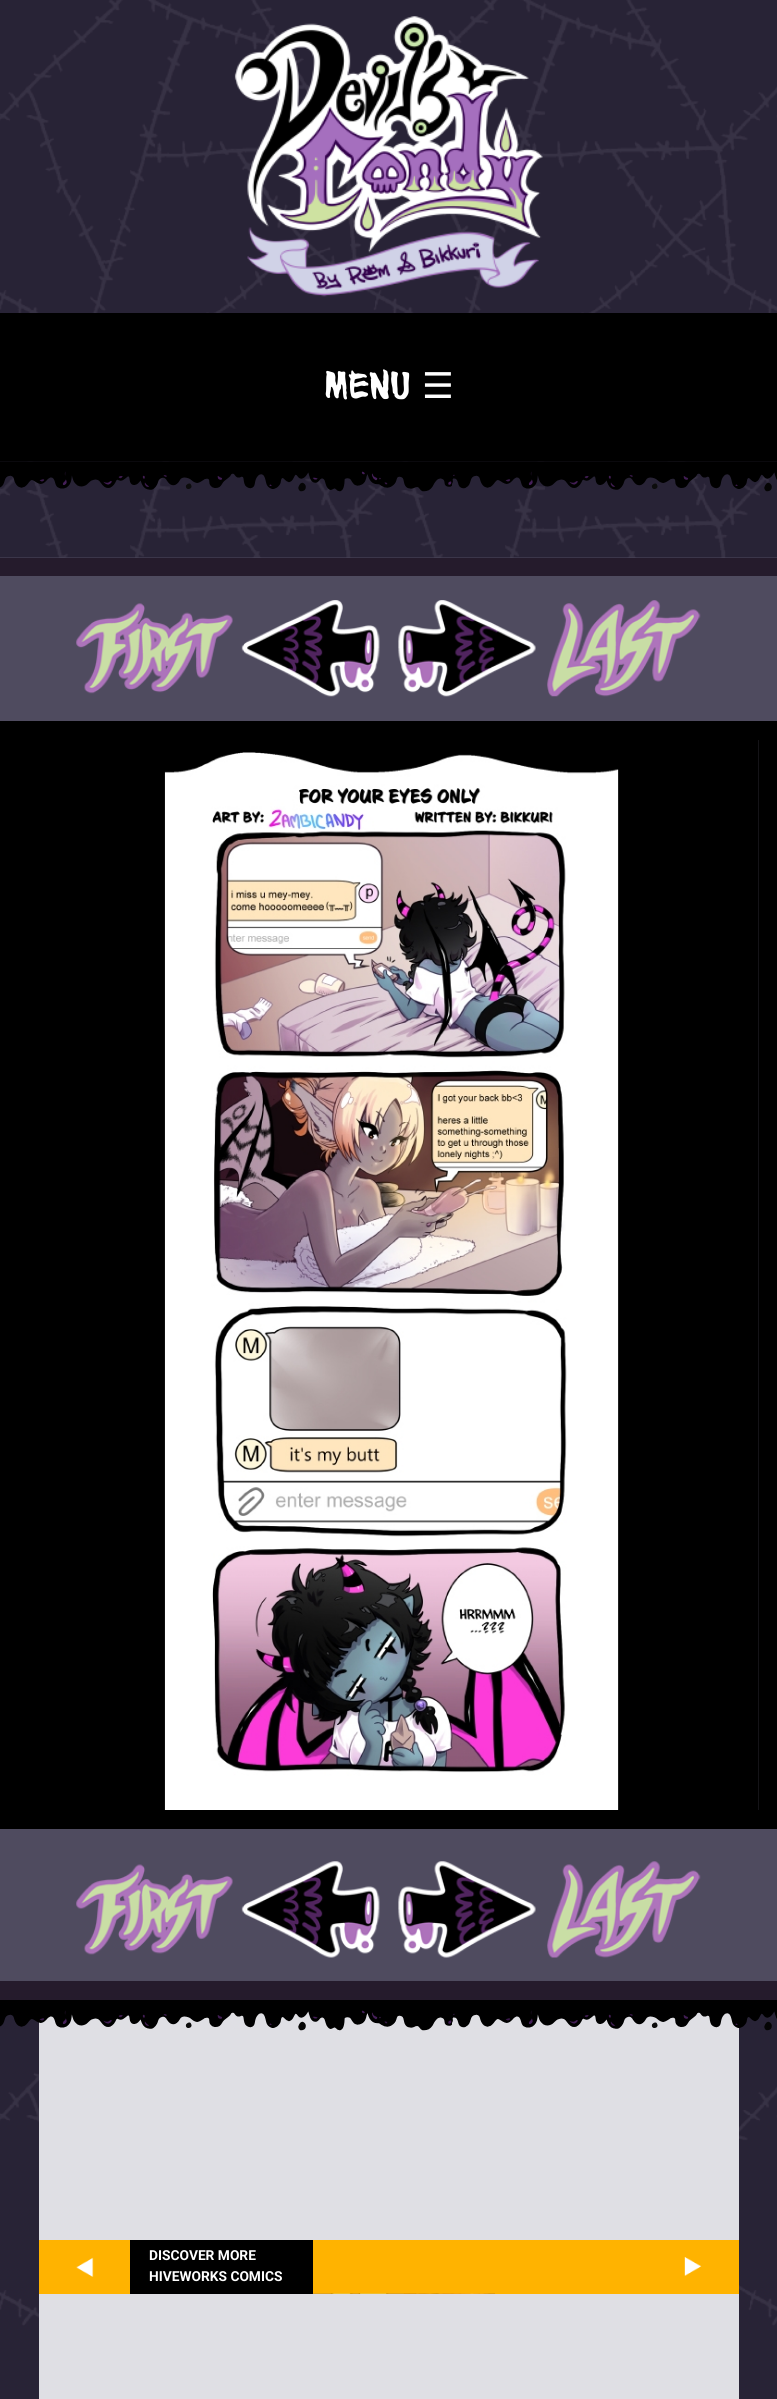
import math
import cairo



def draw_image(context, path, x, y, w, h):
    context.save()
    context.set_source_surface(cairo.ImageSurface.create_from_png(path), x, y)
    context.rectangle(x, y, w, h)
    context.fill()
    context.restore()


def draw(context):
    context.set_source_rgb(79 / 255, 75 / 255, 95 / 255)
    context.paint()
    draw_image(context, "images/1.png", 0, 0, 777, 558)
    draw_image(context, "images/2.png", 234, 16, 309, 281)
    context.set_source_rgb(0, 0, 0)
    context.rectangle(0, 313, 777, 148)
    context.fill()
    draw_image(context, "images/3.png", 0, 461, 777, 31)
    context.set_source_rgb(37 / 255, 27 / 255, 44 / 255)
    context.rectangle(0, 558, 777, 18)
    context.fill()
    context.rectangle(0, 1981, 777, 19)
    context.fill()
    draw_image(context, "images/4.png", 76, 603, 157, 91)
    draw_image(context, "images/5.png", 241, 600, 139, 97)
    draw_image(context, "images/6.png", 398, 600, 138, 97)
    draw_image(context, "images/7.png", 547, 600, 154, 97)
    context.rectangle(9.5, 730.5, 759, 1089)
    context.set_source_rgb(0, 0, 0)
    context.set_line_width(19)
    context.stroke()
    draw_image(context, "images/8.png", 19, 740, 740, 1070)
    draw_image(context, "images/9.png", 76, 1864, 157, 91)
    draw_image(context, "images/10.png", 241, 1861, 139, 97)
    draw_image(context, "images/11.png", 398, 1861, 138, 97)
    draw_image(context, "images/12.png", 547, 1861, 154, 97)
    draw_image(context, "images/13.png", 0, 2011, 777, 388)
    context.set_source_rgb(223 / 255, 223 / 255, 228 / 255)
    context.rectangle(39, 2011, 700, 388)
    context.fill()
    draw_image(context, "images/14.png", 0, 2000, 777, 31)
    context.set_source_rgb(1, 179 / 255, 0)
    context.rectangle(39, 2240, 700, 54)
    context.fill()
    draw_image(context, "images/15.png", 76, 2257, 18, 20)
    context.set_source_rgb(0, 0, 0)
    context.rectangle(130, 2240, 183, 54)
    context.fill()
    draw_image(context, "images/16.png", 684, 2257, 18, 19)
    draw_image(context, "images/17.png", 312, 2293, 92, 1)
    draw_image(context, "images/18.png", 403, 2293, 92, 1)
    context.select_font_face("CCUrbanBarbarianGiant")
    context.set_font_size(35.5)
    context.set_source_rgb(1, 1, 1)
    context.move_to(324, 398)
    context.show_text("Menu")
    context.select_font_face("DejaVu Sans")
    context.move_to(422, 398)
    context.show_text("☰")
    context.select_font_face("Roboto", cairo.FontSlant.NORMAL, cairo.FontWeight.BOLD)
    context.set_font_size(13.75)
    context.move_to(149, 2260)
    context.show_text("DISCOVER MORE")
    context.move_to(149, 2281)
    context.show_text("HIVEWORKS COMICS")


surface = cairo.ImageSurface(cairo.Format.RGB24, 777, 2399)
context = cairo.Context(surface)
options = cairo.FontOptions()
options.set_hint_metrics(cairo.HintMetrics.OFF)
options.set_hint_style(cairo.HintStyle.NONE)
context.set_font_options(options)
context.set_miter_limit(4)
draw(context)
surface.write_to_png("out.png")
